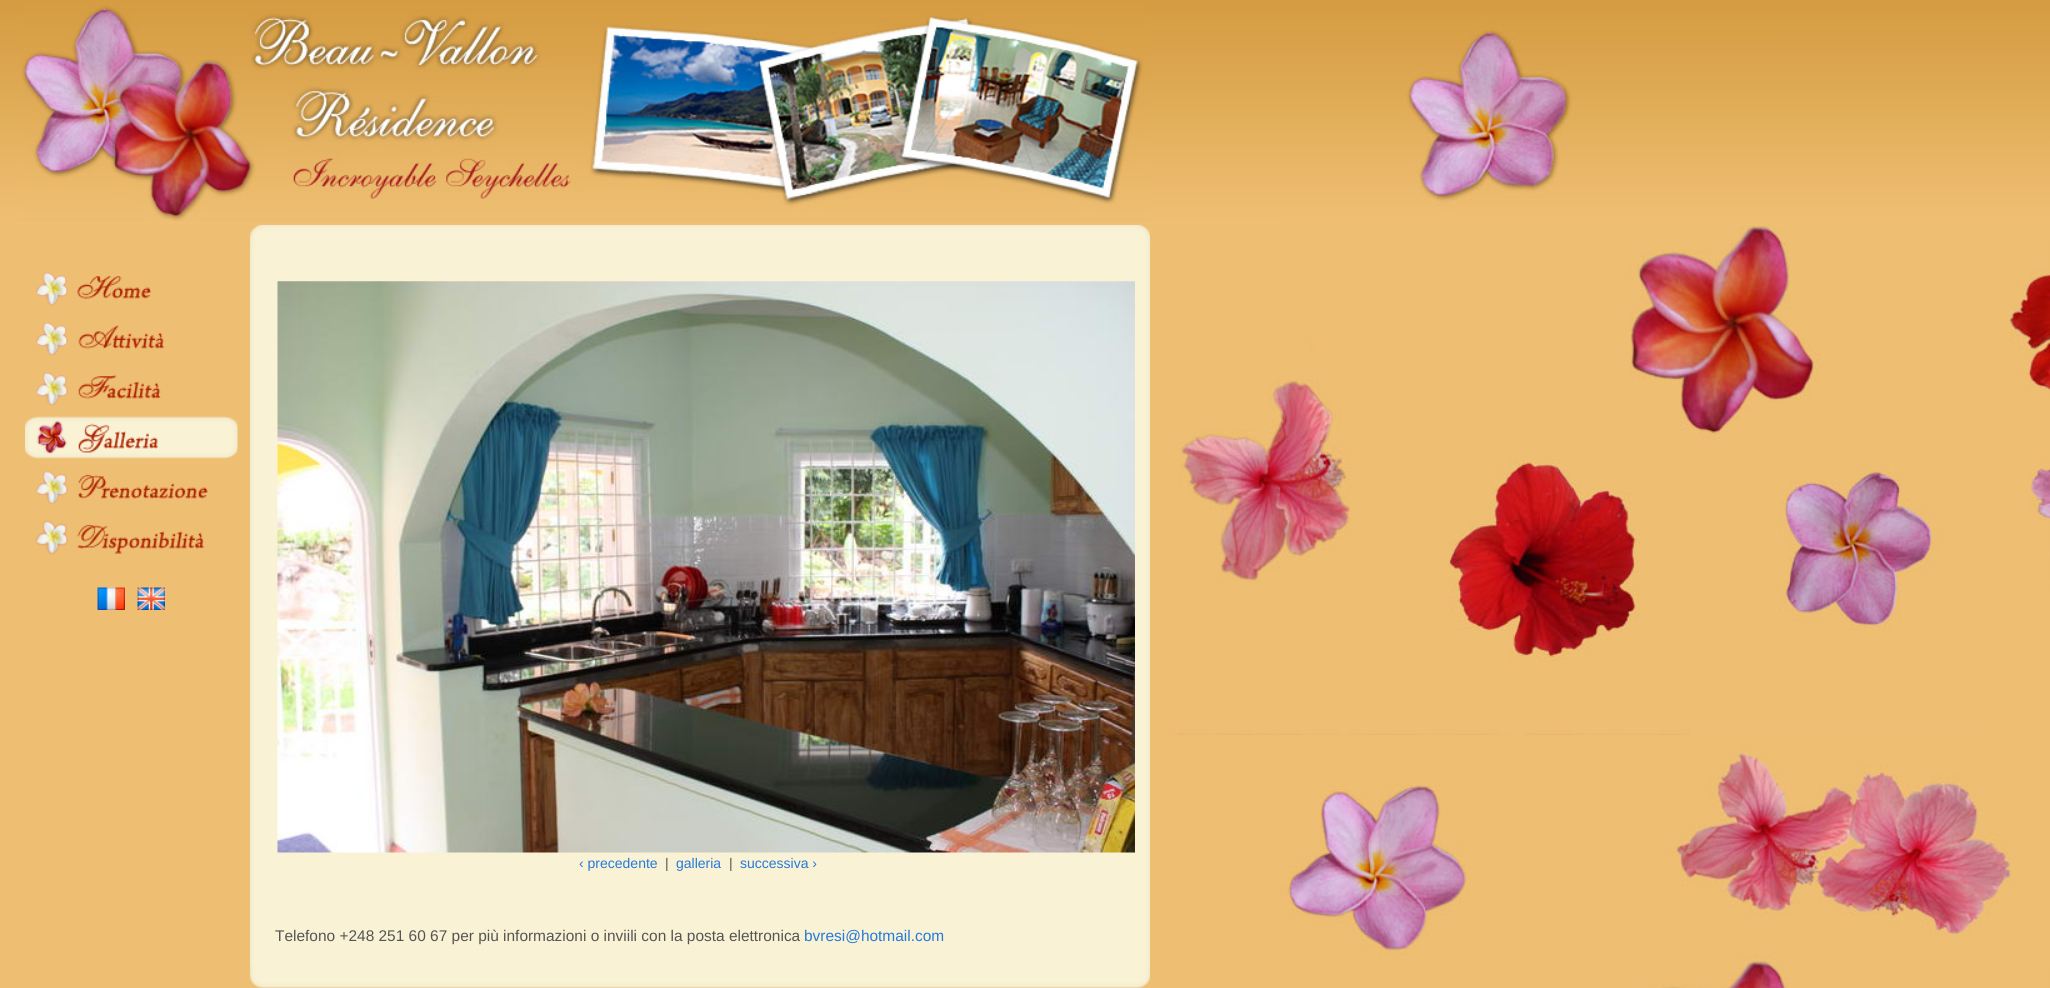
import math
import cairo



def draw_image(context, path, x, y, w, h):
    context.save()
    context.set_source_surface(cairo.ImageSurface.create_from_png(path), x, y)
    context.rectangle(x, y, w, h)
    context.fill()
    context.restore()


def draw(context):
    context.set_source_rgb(1, 1, 1)
    context.paint()
    draw_image(context, "images/1.png", 1150, 225, 900, 763)
    draw_image(context, "images/2.png", 0, 0, 2050, 225)
    draw_image(context, "images/3.png", 20, 1, 1129, 220)
    context.set_source_rgb(238 / 255, 190 / 255, 114 / 255)
    context.rectangle(0, 225, 1150, 25)
    context.fill()
    draw_image(context, "images/4.png", 249, 225, 901, 25)
    context.set_source_rgb(249 / 255, 242 / 255, 212 / 255)
    context.rectangle(250, 250, 900, 713)
    context.fill()
    draw_image(context, "images/5.png", 250, 250, 900, 713)
    context.set_source_rgb(238 / 255, 190 / 255, 114 / 255)
    context.rectangle(0, 250, 250, 713)
    context.fill()
    draw_image(context, "images/6.png", 35, 272, 117, 34)
    draw_image(context, "images/7.png", 36, 322, 128, 34)
    draw_image(context, "images/8.png", 36, 372, 125, 34)
    draw_image(context, "images/9.png", 25, 416, 213, 43)
    draw_image(context, "images/10.png", 35, 470, 173, 34)
    draw_image(context, "images/11.png", 35, 520, 169, 35)
    draw_image(context, "images/12.png", 97, 587, 28, 23)
    draw_image(context, "images/13.png", 137, 587, 28, 23)
    draw_image(context, "images/14.png", 277, 281, 858, 572)
    context.rectangle(0, 963, 1150, 25)
    context.fill()
    draw_image(context, "images/15.png", 249, 963, 901, 25)
    context.select_font_face("Liberation Sans")
    context.set_font_size(14)
    context.set_source_rgb(35 / 255, 122 / 255, 220 / 255)
    context.move_to(579, 868)
    context.show_text("‹ precedente")
    context.set_source_rgb(85 / 255, 85 / 255, 85 / 255)
    context.move_to(665, 868)
    context.show_text("|")
    context.set_source_rgb(35 / 255, 122 / 255, 220 / 255)
    context.move_to(676, 868)
    context.show_text("galleria")
    context.set_source_rgb(85 / 255, 85 / 255, 85 / 255)
    context.move_to(729, 868)
    context.show_text("|")
    context.set_source_rgb(35 / 255, 122 / 255, 220 / 255)
    context.move_to(740, 868)
    context.show_text("successiva ›")
    context.set_font_size(15.45)
    context.set_source_rgb(85 / 255, 85 / 255, 85 / 255)
    context.move_to(275, 941)
    context.show_text("Telefono +248 251 60 67 per più informazioni o inviili con la posta elettronica")
    context.set_source_rgb(35 / 255, 122 / 255, 220 / 255)
    context.move_to(804, 941)
    context.show_text("bvresi@hotmail.com")


surface = cairo.ImageSurface(cairo.Format.RGB24, 2050, 988)
context = cairo.Context(surface)
options = cairo.FontOptions()
options.set_hint_metrics(cairo.HintMetrics.OFF)
options.set_hint_style(cairo.HintStyle.NONE)
context.set_font_options(options)
context.set_miter_limit(4)
draw(context)
surface.write_to_png("out.png")
